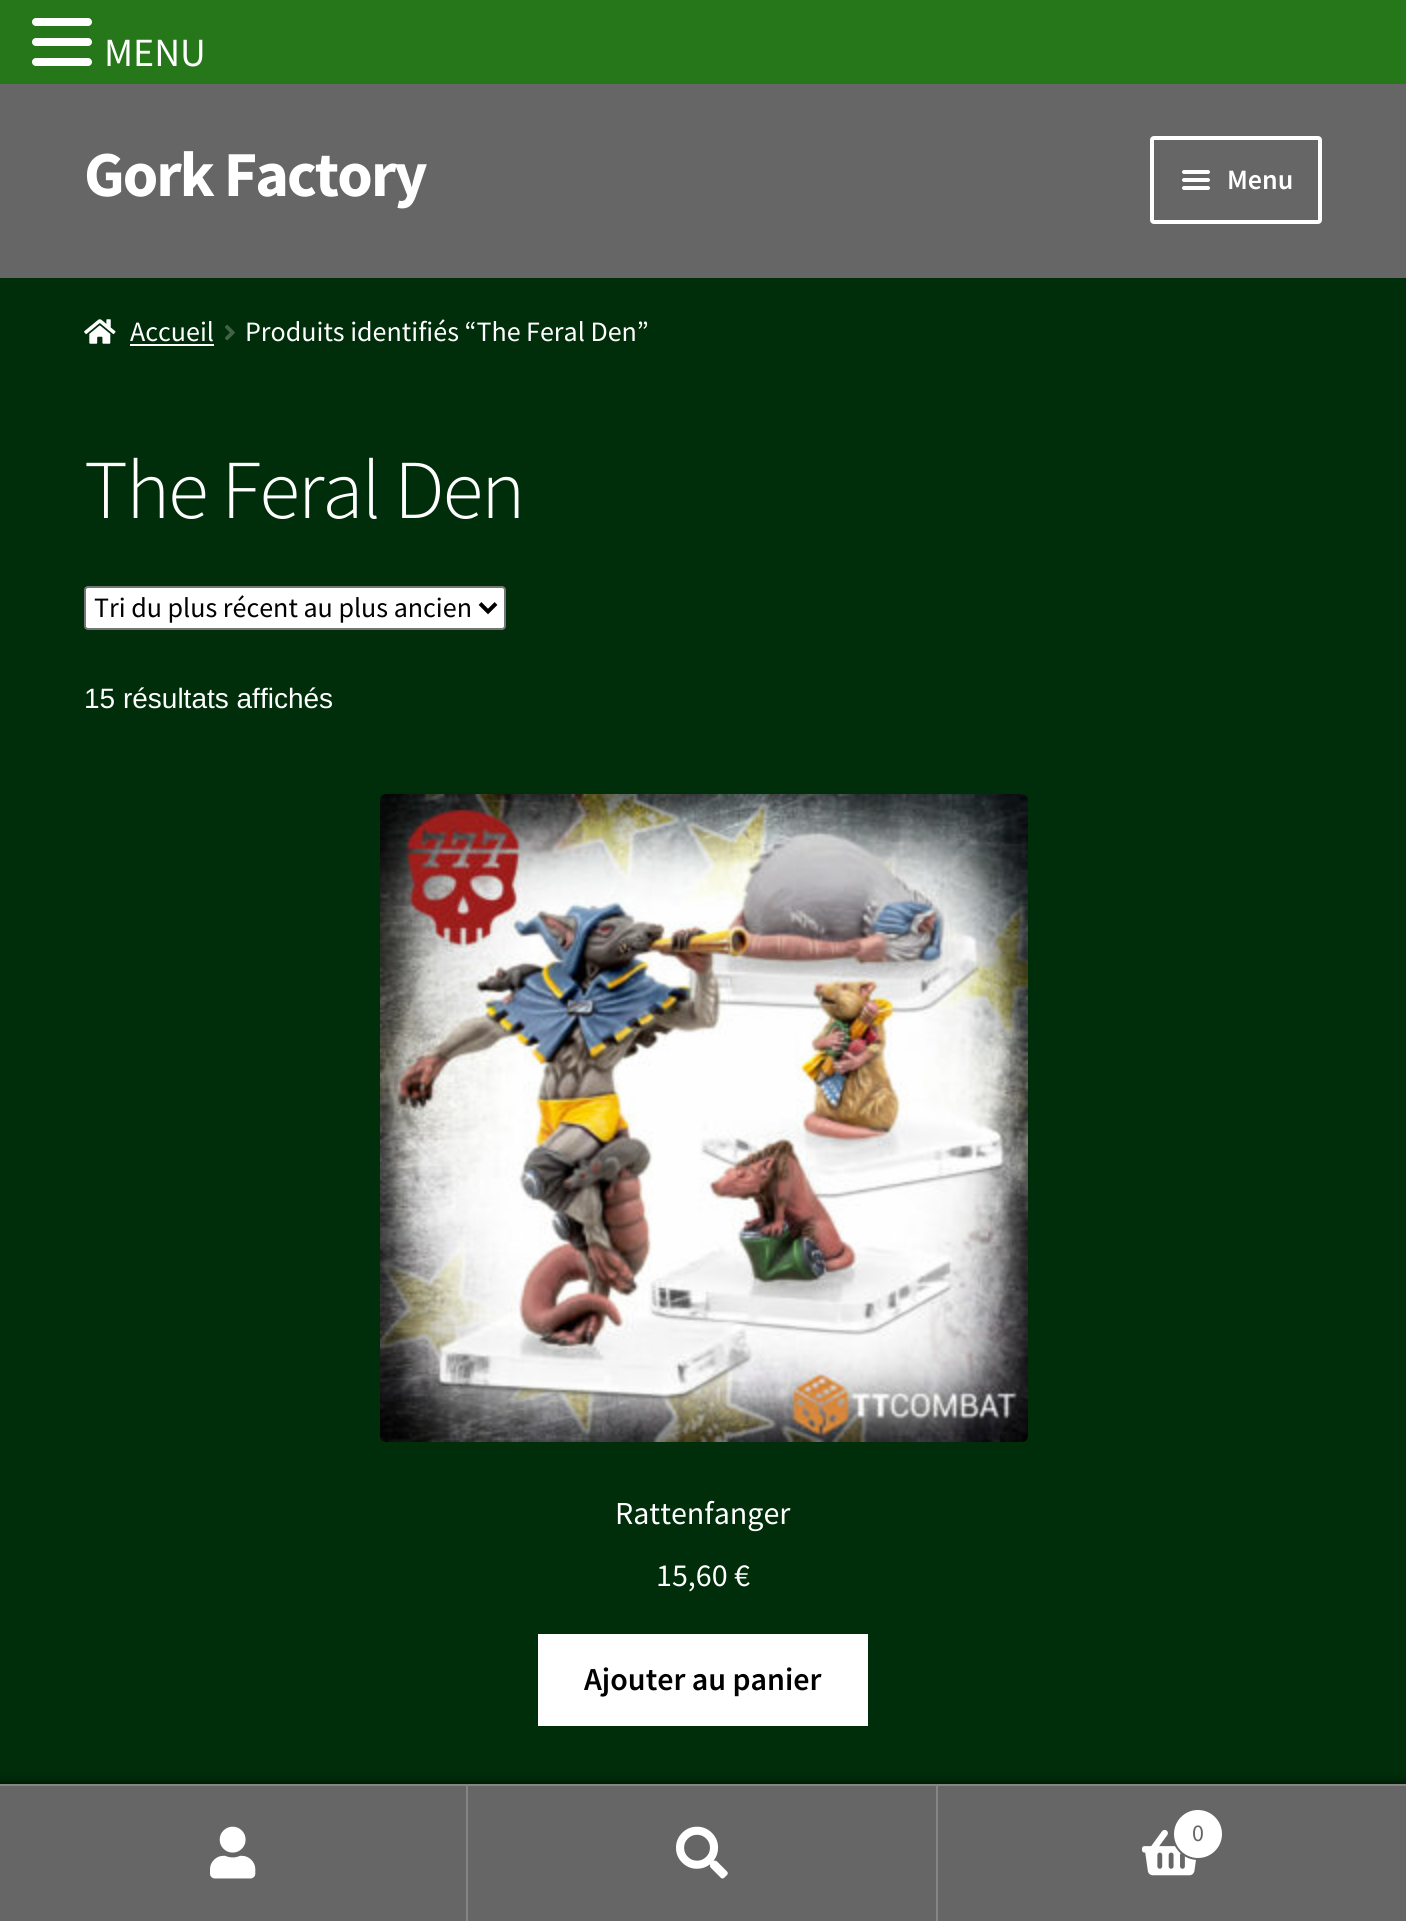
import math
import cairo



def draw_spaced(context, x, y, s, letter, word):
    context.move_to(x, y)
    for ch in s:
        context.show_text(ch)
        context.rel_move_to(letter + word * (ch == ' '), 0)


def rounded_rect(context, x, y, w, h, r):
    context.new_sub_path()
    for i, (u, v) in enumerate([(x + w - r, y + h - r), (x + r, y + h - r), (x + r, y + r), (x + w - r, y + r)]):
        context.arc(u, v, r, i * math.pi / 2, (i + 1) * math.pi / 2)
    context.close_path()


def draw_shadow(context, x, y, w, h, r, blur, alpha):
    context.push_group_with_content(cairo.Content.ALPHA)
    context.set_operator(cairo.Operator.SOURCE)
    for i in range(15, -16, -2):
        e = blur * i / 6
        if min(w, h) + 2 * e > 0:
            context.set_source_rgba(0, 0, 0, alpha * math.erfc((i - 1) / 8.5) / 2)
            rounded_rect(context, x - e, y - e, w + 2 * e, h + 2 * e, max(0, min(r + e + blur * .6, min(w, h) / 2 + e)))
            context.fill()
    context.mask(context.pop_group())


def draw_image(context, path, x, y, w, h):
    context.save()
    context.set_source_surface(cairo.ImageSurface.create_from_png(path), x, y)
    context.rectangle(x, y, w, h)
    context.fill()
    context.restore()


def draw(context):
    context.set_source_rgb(0, 45 / 255, 10 / 255)
    context.paint()
    context.set_source_rgb(37 / 255, 119 / 255, 26 / 255)
    context.rectangle(0, 0, 1406, 84)
    context.fill()
    context.set_source_rgb(1, 1, 1)
    rounded_rect(context, 32, 18, 60, 8, 4)
    context.fill()
    rounded_rect(context, 32, 38, 60, 8, 4)
    context.fill()
    rounded_rect(context, 32, 58, 60, 8, 4)
    context.fill()
    context.set_source_rgb(102 / 255, 102 / 255, 102 / 255)
    context.rectangle(0, 84, 1406, 194)
    context.fill()
    rounded_rect(context, 1152, 138, 168, 84, 2)
    context.set_source_rgb(1, 1, 1)
    context.set_line_width(4)
    context.stroke()
    rounded_rect(context, 1182, 170, 28, 4, 2)
    context.fill()
    rounded_rect(context, 1182, 178, 28, 4, 2)
    context.fill()
    rounded_rect(context, 1182, 186, 28, 4, 2)
    context.fill()
    draw_image(context, "images/1.png", 84, 319, 32, 25)
    context.rectangle(130, 344, 84, 2)
    context.fill()
    draw_image(context, "images/2.png", 225, 325, 10, 16)
    rounded_rect(context, 85, 587, 420, 42, 3)
    context.fill_preserve()
    context.set_source_rgb(118 / 255, 118 / 255, 118 / 255)
    context.set_line_width(2)
    context.stroke()
    context.new_path()
    context.move_to(480, 603.5)
    context.line_to(488, 611.5)
    context.line_to(496, 603.5)
    context.set_source_rgb(0, 0, 0)
    context.set_line_width(4)
    context.stroke()
    draw_image(context, "images/3.png", 380, 794, 648, 648)
    context.set_source_rgb(1, 1, 1)
    context.rectangle(538, 1634, 330, 92)
    context.fill()
    context.set_source_rgb(0, 0, 0)
    draw_shadow(context, 0, 1784, 1406, 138, 0, 6, 0.7)
    context.set_source_rgb(133 / 255, 133 / 255, 133 / 255)
    context.rectangle(0, 1784, 1406, 2)
    context.fill()
    context.set_source_rgb(102 / 255, 102 / 255, 102 / 255)
    context.rectangle(0, 1786, 466, 135)
    context.fill()
    context.set_source_rgb(133 / 255, 133 / 255, 133 / 255)
    context.rectangle(466, 1786, 2, 135)
    context.fill()
    draw_image(context, "images/4.png", 210, 1826, 46, 53)
    context.set_source_rgb(102 / 255, 102 / 255, 102 / 255)
    context.rectangle(468, 1786, 468, 135)
    context.fill()
    context.set_source_rgb(133 / 255, 133 / 255, 133 / 255)
    context.rectangle(936, 1786, 2, 135)
    context.fill()
    draw_image(context, "images/5.png", 676, 1826, 52, 53)
    context.set_source_rgb(102 / 255, 102 / 255, 102 / 255)
    context.rectangle(938, 1786, 468, 135)
    context.fill()
    draw_image(context, "images/6.png", 1142, 1829, 55, 47)
    context.set_source_rgb(1, 1, 1)
    context.arc(1198, 1834, 25, 0, 2 * math.pi)
    context.fill_preserve()
    context.set_source_rgb(102 / 255, 102 / 255, 102 / 255)
    context.set_line_width(2)
    context.stroke()
    context.select_font_face("Source Sans Pro")
    context.set_font_size(40)
    context.set_source_rgb(1, 1, 1)
    context.move_to(104, 66)
    context.show_text("MENU")
    context.select_font_face("Source Sans Pro", cairo.FontSlant.NORMAL, cairo.FontWeight.BOLD)
    context.set_font_size(64)
    draw_spaced(context, 84, 196, "Gork Factory", -2, 0)
    context.select_font_face("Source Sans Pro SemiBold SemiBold")
    context.set_font_size(28)
    context.move_to(1227, 189)
    context.show_text("Menu")
    context.select_font_face("Source Sans Pro")
    context.move_to(130, 341)
    context.show_text("Accueil")
    context.move_to(245, 341)
    context.show_text("Produits identifiés “The Feral Den”")
    context.select_font_face("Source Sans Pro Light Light")
    context.set_font_size(83.75)
    draw_spaced(context, 84, 518, "The Feral Den", -2, 0)
    context.select_font_face("Source Sans Pro")
    context.set_font_size(28)
    context.set_source_rgb(0, 0, 0)
    context.move_to(94, 617)
    context.show_text("Tri du plus récent au plus ancien")
    context.select_font_face("Liberation Sans")
    context.set_source_rgb(1, 1, 1)
    context.move_to(84, 708)
    context.show_text("15 résultats affichés")
    context.select_font_face("Source Sans Pro")
    context.set_font_size(32)
    context.move_to(615, 1524)
    context.show_text("Rattenfanger")
    context.move_to(656, 1586)
    context.show_text("15,60 €")
    context.select_font_face("Source Sans Pro SemiBold SemiBold")
    context.set_source_rgb(0, 0, 0)
    context.move_to(584, 1690)
    context.show_text("Ajouter au panier")
    context.select_font_face("Source Sans Pro")
    context.set_font_size(24)
    context.set_source_rgb(102 / 255, 102 / 255, 102 / 255)
    context.move_to(1192, 1841)
    context.show_text("0")


surface = cairo.ImageSurface(cairo.Format.RGB24, 1406, 1921)
context = cairo.Context(surface)
options = cairo.FontOptions()
options.set_hint_metrics(cairo.HintMetrics.OFF)
options.set_hint_style(cairo.HintStyle.NONE)
context.set_font_options(options)
context.set_miter_limit(4)
draw(context)
surface.write_to_png("out.png")
